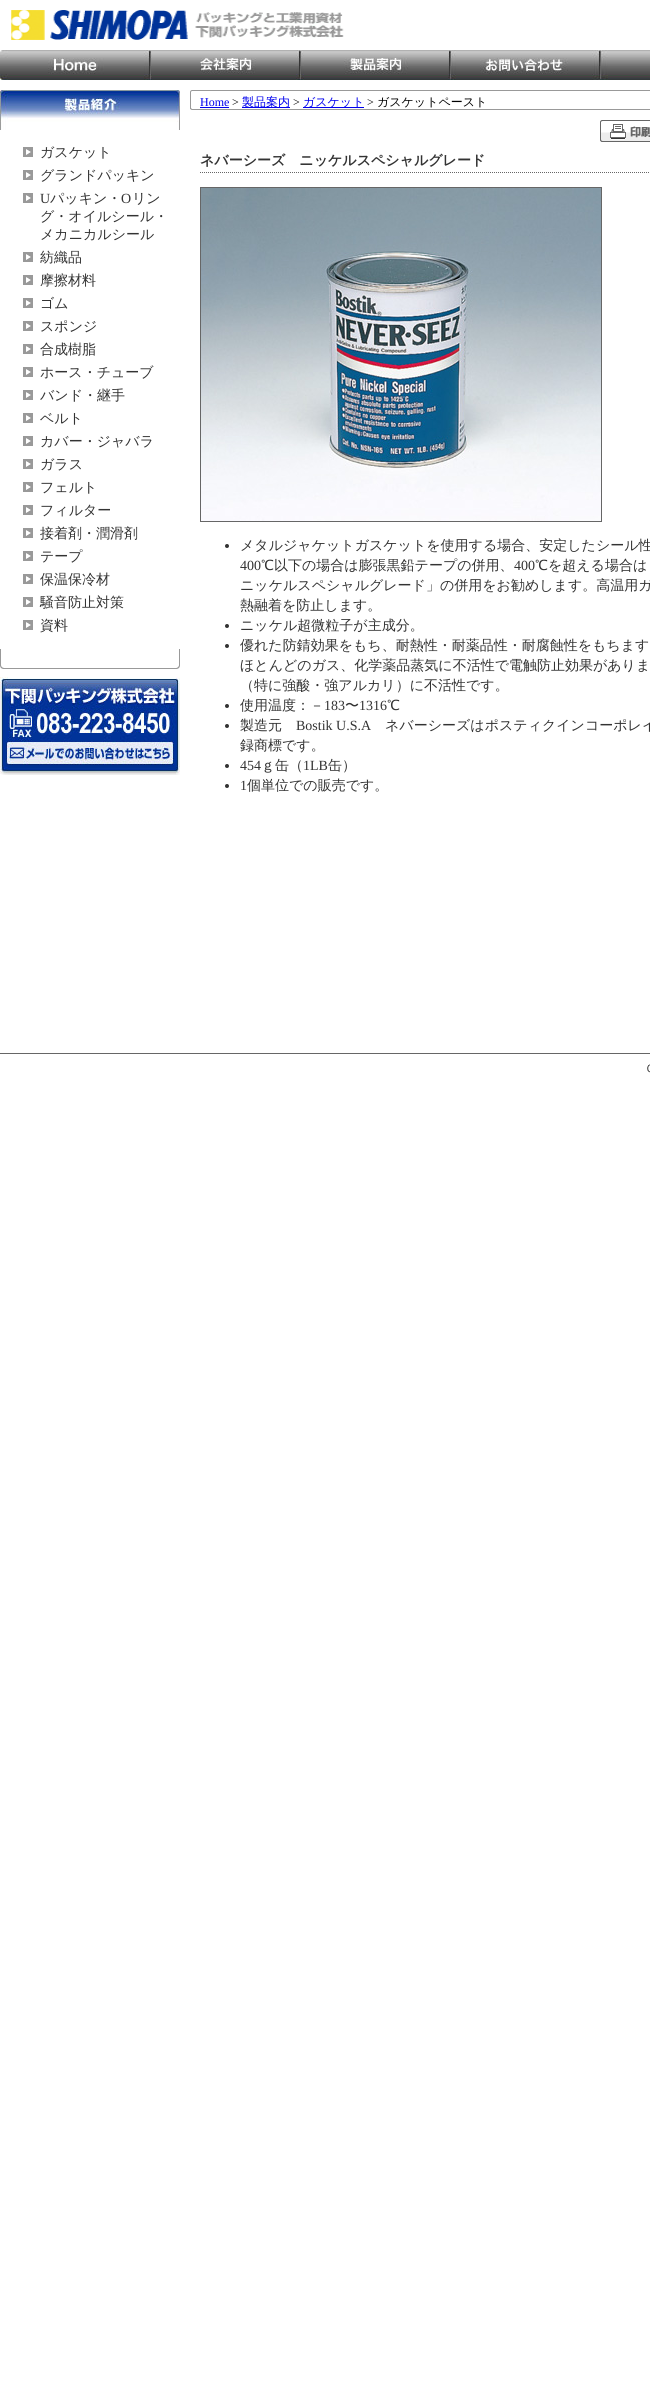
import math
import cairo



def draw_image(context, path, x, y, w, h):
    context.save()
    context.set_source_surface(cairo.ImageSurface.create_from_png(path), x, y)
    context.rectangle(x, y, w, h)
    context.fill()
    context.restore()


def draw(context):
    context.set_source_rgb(1, 1, 1)
    context.paint()
    draw_image(context, "images/1.png", 11, 10, 333, 30)
    draw_image(context, "images/2.png", 0, 50, 650, 30)
    draw_image(context, "images/3.png", 0, 90, 180, 40)
    draw_image(context, "images/4.png", 23, 147, 10, 10)
    draw_image(context, "images/4.png", 23, 170, 10, 10)
    draw_image(context, "images/4.png", 23, 193, 10, 10)
    draw_image(context, "images/4.png", 23, 252, 10, 10)
    draw_image(context, "images/4.png", 23, 275, 10, 10)
    draw_image(context, "images/4.png", 23, 298, 10, 10)
    draw_image(context, "images/4.png", 23, 321, 10, 10)
    draw_image(context, "images/4.png", 23, 344, 10, 10)
    draw_image(context, "images/4.png", 23, 367, 10, 10)
    draw_image(context, "images/4.png", 23, 390, 10, 10)
    draw_image(context, "images/4.png", 23, 413, 10, 10)
    draw_image(context, "images/4.png", 23, 436, 10, 10)
    draw_image(context, "images/4.png", 23, 459, 10, 10)
    draw_image(context, "images/4.png", 23, 482, 10, 10)
    draw_image(context, "images/4.png", 23, 505, 10, 10)
    draw_image(context, "images/4.png", 23, 528, 10, 10)
    draw_image(context, "images/4.png", 23, 551, 10, 10)
    draw_image(context, "images/4.png", 23, 574, 10, 10)
    draw_image(context, "images/4.png", 23, 597, 10, 10)
    draw_image(context, "images/4.png", 23, 620, 10, 10)
    draw_image(context, "images/5.png", 0, 649, 180, 20)
    draw_image(context, "images/6.png", 0, 677, 180, 98)
    draw_image(context, "images/7.png", 6, 741, 168, 26)
    draw_image(context, "images/8.png", 190, 90, 460, 20)
    context.set_source_rgb(0, 0, 238 / 255)
    context.rectangle(200, 107, 29, 1)
    context.fill()
    context.rectangle(242, 107, 48, 1)
    context.fill()
    context.rectangle(303, 107, 61, 1)
    context.fill()
    draw_image(context, "images/9.png", 600, 120, 50, 22)
    context.new_path()
    context.move_to(200, 172.5)
    context.line_to(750, 172.5)
    context.set_source_rgb(102 / 255, 102 / 255, 102 / 255)
    context.set_line_width(1)
    context.set_dash([1, 1])
    context.stroke()
    context.rectangle(200.5, 187.5, 401, 334)
    context.set_dash([])
    context.stroke()
    draw_image(context, "images/10.png", 201, 188, 400, 333)
    context.set_source_rgb(51 / 255, 51 / 255, 51 / 255)
    context.arc(227, 546, 2, 0, 2 * math.pi)
    context.fill()
    context.arc(227, 626, 2, 0, 2 * math.pi)
    context.fill()
    context.arc(227, 646, 2, 0, 2 * math.pi)
    context.fill()
    context.arc(227, 706, 2, 0, 2 * math.pi)
    context.fill()
    context.arc(227, 726, 2, 0, 2 * math.pi)
    context.fill()
    context.arc(227, 766, 2, 0, 2 * math.pi)
    context.fill()
    context.arc(227, 786, 2, 0, 2 * math.pi)
    context.fill()
    context.set_source_rgb(102 / 255, 102 / 255, 102 / 255)
    context.rectangle(0, 1053, 650, 1)
    context.fill()
    draw_image(context, "images/11.png", 647, 1064, 3, 9)
    context.select_font_face("WenQuanYi Zen Hei Medium")
    context.set_font_size(14)
    context.set_source_rgb(51 / 255, 51 / 255, 51 / 255)
    context.move_to(40, 157)
    context.show_text("ガスケット")
    context.move_to(40, 180)
    context.show_text("グランドパッキン")
    context.select_font_face("Liberation Serif")
    context.move_to(40, 203)
    context.show_text("U")
    context.select_font_face("WenQuanYi Zen Hei Medium")
    context.move_to(50, 203)
    context.show_text("パッキン・")
    context.select_font_face("Liberation Serif")
    context.move_to(121, 203)
    context.show_text("O")
    context.select_font_face("WenQuanYi Zen Hei Medium")
    context.move_to(132, 203)
    context.show_text("リン")
    context.move_to(40, 221)
    context.show_text("グ・オイルシール・")
    context.move_to(40, 239)
    context.show_text("メカニカルシール")
    context.move_to(40, 262)
    context.show_text("紡織品")
    context.move_to(40, 285)
    context.show_text("摩擦材料")
    context.move_to(40, 308)
    context.show_text("ゴム")
    context.move_to(40, 331)
    context.show_text("スポンジ")
    context.move_to(40, 354)
    context.show_text("合成樹脂")
    context.move_to(40, 377)
    context.show_text("ホース・チューブ")
    context.move_to(40, 400)
    context.show_text("バンド・継手")
    context.move_to(40, 423)
    context.show_text("ベルト")
    context.move_to(40, 446)
    context.show_text("カバー・ジャバラ")
    context.move_to(40, 469)
    context.show_text("ガラス")
    context.move_to(40, 492)
    context.show_text("フェルト")
    context.move_to(40, 515)
    context.show_text("フィルター")
    context.move_to(40, 538)
    context.show_text("接着剤・潤滑剤")
    context.move_to(40, 561)
    context.show_text("テープ")
    context.move_to(40, 584)
    context.show_text("保温保冷材")
    context.move_to(40, 607)
    context.show_text("騒音防止対策")
    context.move_to(40, 630)
    context.show_text("資料")
    context.select_font_face("Liberation Serif")
    context.set_font_size(12)
    context.set_source_rgb(0, 0, 238 / 255)
    context.move_to(200, 106)
    context.show_text("Home")
    context.set_source_rgb(0, 0, 0)
    context.move_to(232, 106)
    context.show_text(">")
    context.select_font_face("WenQuanYi Zen Hei Medium")
    context.set_source_rgb(0, 0, 238 / 255)
    context.move_to(242, 106)
    context.show_text("製品案内")
    context.select_font_face("Liberation Serif")
    context.set_source_rgb(0, 0, 0)
    context.move_to(293, 106)
    context.show_text(">")
    context.select_font_face("WenQuanYi Zen Hei Medium")
    context.set_source_rgb(0, 0, 238 / 255)
    context.move_to(303, 106)
    context.show_text("ガスケット")
    context.select_font_face("Liberation Serif")
    context.set_source_rgb(0, 0, 0)
    context.move_to(367, 106)
    context.show_text(">")
    context.select_font_face("WenQuanYi Zen Hei Medium")
    context.move_to(377, 106)
    context.show_text("ガスケットペースト")
    context.select_font_face("WenQuanYi Zen Hei", cairo.FontSlant.NORMAL, cairo.FontWeight.BOLD)
    context.set_font_size(14)
    context.set_source_rgb(51 / 255, 51 / 255, 51 / 255)
    context.move_to(200, 165)
    context.show_text("ネバーシーズ　ニッケルスペシャルグレード")
    context.select_font_face("WenQuanYi Zen Hei Medium")
    context.move_to(240, 550)
    context.show_text("メタルジャケットガスケットを使用する場合、安定したシール性")
    context.select_font_face("Liberation Serif")
    context.move_to(240, 570)
    context.show_text("400")
    context.select_font_face("WenQuanYi Zen Hei Medium")
    context.move_to(261, 570)
    context.show_text("℃以下の場合は膨張黒鉛テープの併用、")
    context.select_font_face("Liberation Serif")
    context.move_to(514, 570)
    context.show_text("400")
    context.select_font_face("WenQuanYi Zen Hei Medium")
    context.move_to(535, 570)
    context.show_text("℃を超える場合は")
    context.move_to(240, 590)
    context.show_text("ニッケルスペシャルグレード」の併用をお勧めします。高温用ガ")
    context.move_to(240, 610)
    context.show_text("熱融着を防止します。")
    context.move_to(240, 630)
    context.show_text("ニッケル超微粒子が主成分。")
    context.move_to(240, 650)
    context.show_text("優れた防錆効果をもち、耐熱性・耐薬品性・耐腐蝕性をもちます")
    context.move_to(240, 670)
    context.show_text("ほとんどのガス、化学薬品蒸気に不活性で電触防止効果がありま")
    context.move_to(240, 690)
    context.show_text("（特に強酸・強アルカリ）に不活性です。")
    context.move_to(240, 710)
    context.show_text("使用温度：－")
    context.select_font_face("Liberation Serif")
    context.move_to(324, 710)
    context.show_text("183")
    context.select_font_face("WenQuanYi Zen Hei Medium")
    context.move_to(345, 710)
    context.show_text("〜")
    context.select_font_face("Liberation Serif")
    context.move_to(359, 710)
    context.show_text("1316")
    context.select_font_face("WenQuanYi Zen Hei Medium")
    context.move_to(387, 710)
    context.show_text("℃")
    context.move_to(240, 730)
    context.show_text("製造元")
    context.select_font_face("Liberation Serif")
    context.move_to(296, 730)
    context.show_text("Bostik U.S.A")
    context.select_font_face("WenQuanYi Zen Hei Medium")
    context.move_to(385, 730)
    context.show_text("ネバーシーズはポスティクインコーポレイ")
    context.move_to(240, 750)
    context.show_text("録商標です。")
    context.select_font_face("Liberation Serif")
    context.move_to(240, 770)
    context.show_text("454")
    context.select_font_face("WenQuanYi Zen Hei Medium")
    context.move_to(261, 770)
    context.show_text("ｇ缶（")
    context.select_font_face("Liberation Serif")
    context.move_to(303, 770)
    context.show_text("1LB")
    context.select_font_face("WenQuanYi Zen Hei Medium")
    context.move_to(328, 770)
    context.show_text("缶）")
    context.select_font_face("Liberation Serif")
    context.move_to(240, 790)
    context.show_text("1")
    context.select_font_face("WenQuanYi Zen Hei Medium")
    context.move_to(247, 790)
    context.show_text("個単位での販売です。")


surface = cairo.ImageSurface(cairo.Format.RGB24, 650, 2399)
context = cairo.Context(surface)
options = cairo.FontOptions()
options.set_hint_metrics(cairo.HintMetrics.OFF)
options.set_hint_style(cairo.HintStyle.NONE)
context.set_font_options(options)
context.set_miter_limit(4)
draw(context)
surface.write_to_png("out.png")
